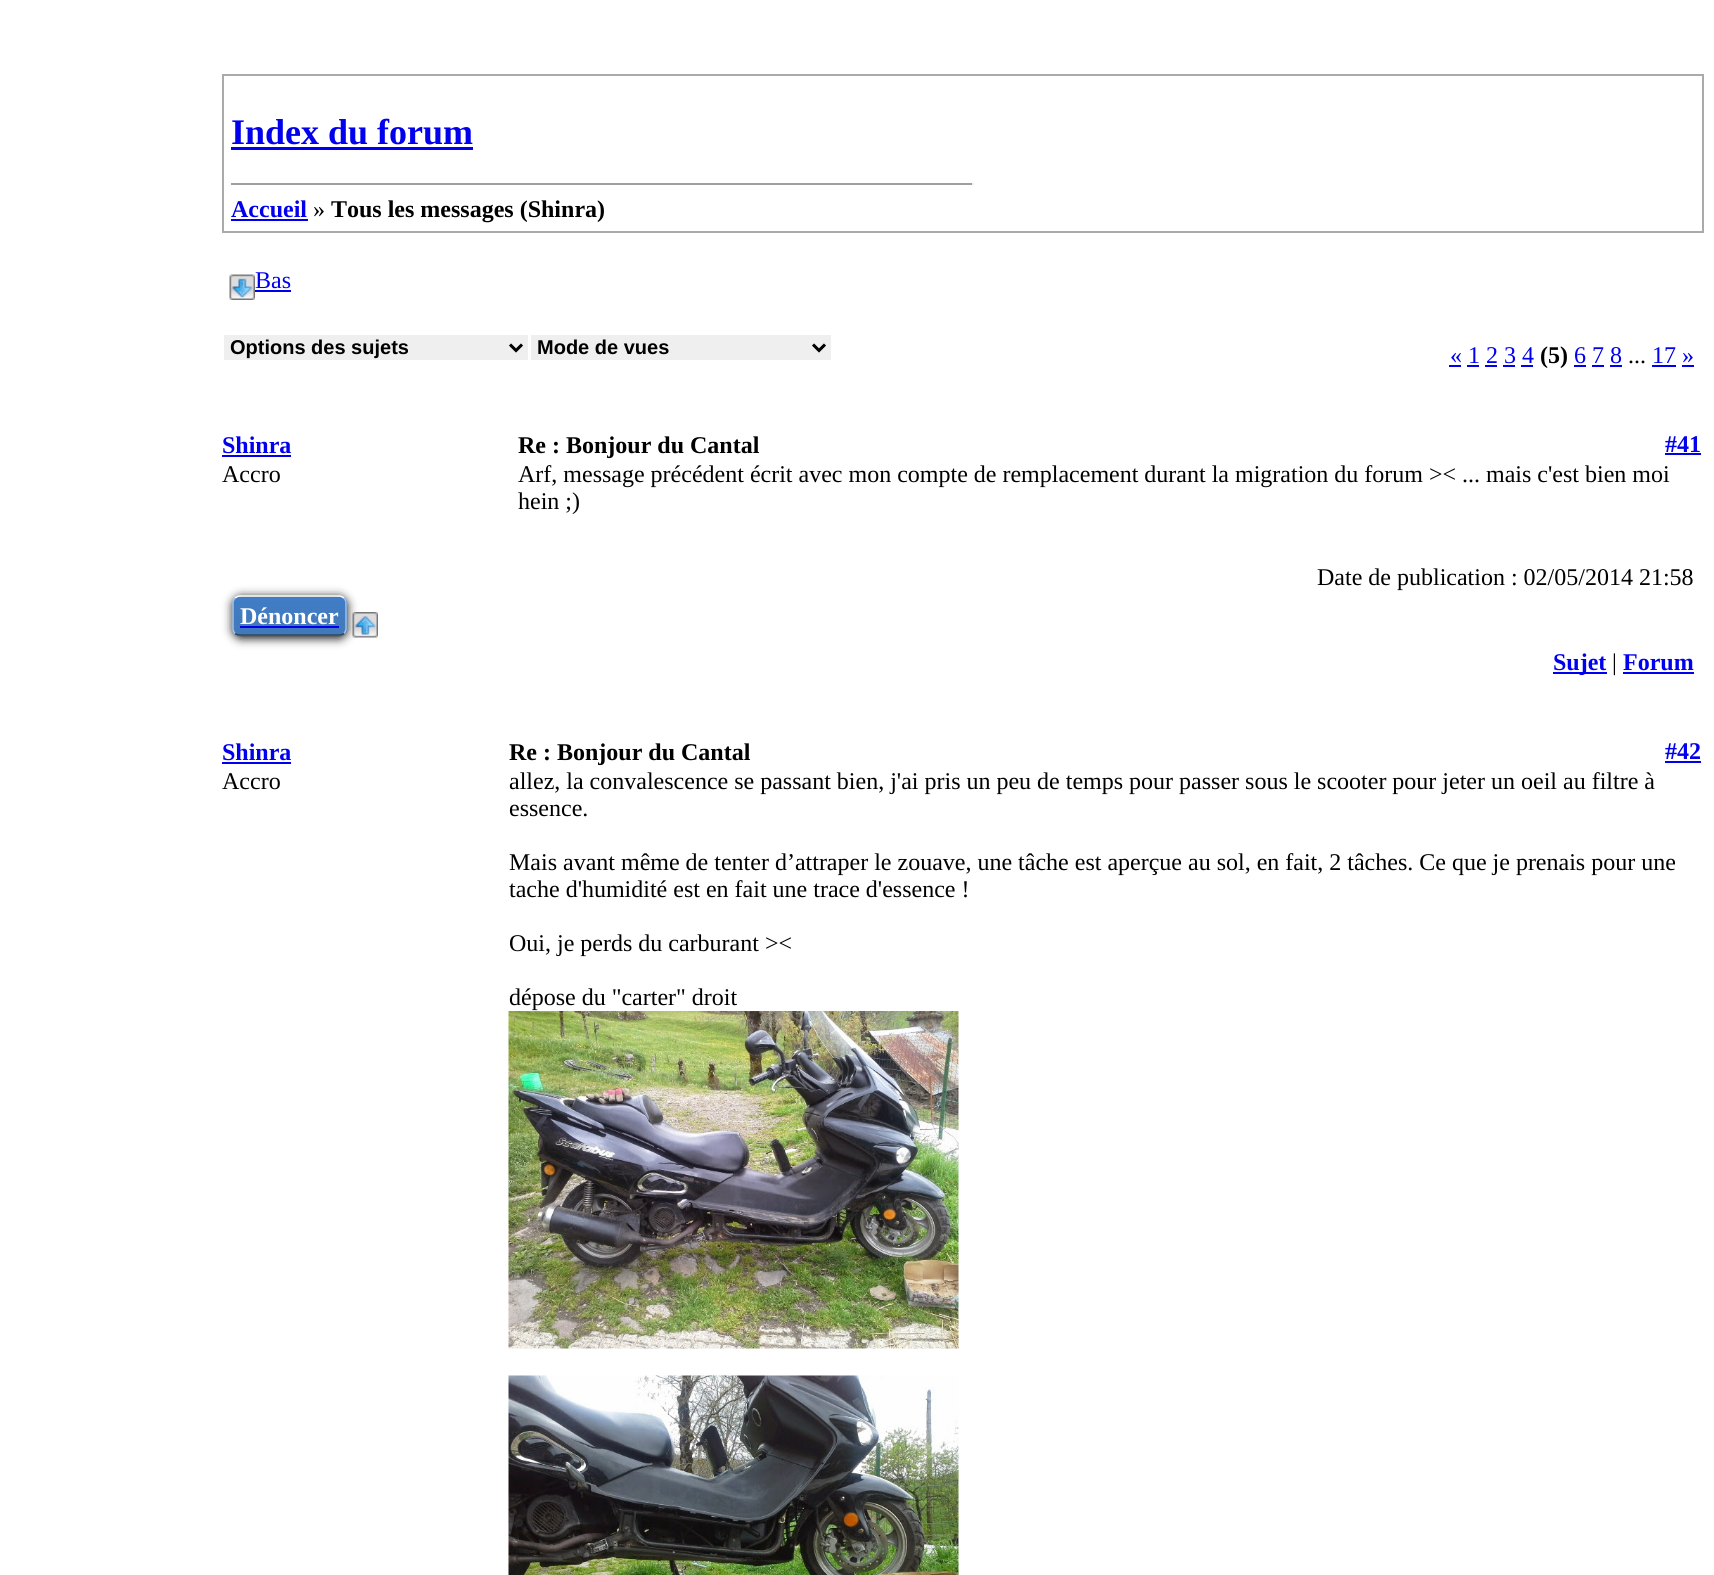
import math
import cairo



def rounded_rect(context, x, y, w, h, r):
    context.new_sub_path()
    for i, (u, v) in enumerate([(x + w - r, y + h - r), (x + r, y + h - r), (x + r, y + r), (x + w - r, y + r)]):
        context.arc(u, v, r, i * math.pi / 2, (i + 1) * math.pi / 2)
    context.close_path()


def draw_shadow(context, x, y, w, h, r, blur, alpha):
    context.push_group_with_content(cairo.Content.ALPHA)
    context.set_operator(cairo.Operator.SOURCE)
    for i in range(15, -16, -2):
        e = blur * i / 6
        if min(w, h) + 2 * e > 0:
            context.set_source_rgba(0, 0, 0, alpha * math.erfc((i - 1) / 8.5) / 2)
            rounded_rect(context, x - e, y - e, w + 2 * e, h + 2 * e, max(0, min(r + e + blur * .6, min(w, h) / 2 + e)))
            context.fill()
    context.mask(context.pop_group())


def draw_image(context, path, x, y, w, h):
    context.save()
    context.set_source_surface(cairo.ImageSurface.create_from_png(path), x, y)
    context.rectangle(x, y, w, h)
    context.fill()
    context.restore()


def draw(context):
    context.set_source_rgb(1, 1, 1)
    context.paint()
    context.rectangle(223, 75, 1480, 157)
    context.set_source_rgb(170 / 255, 170 / 255, 170 / 255)
    context.stroke()
    context.set_source_rgb(0, 0, 238 / 255)
    context.rectangle(231, 147, 242, 3)
    context.fill()
    context.set_source_rgb(159 / 255, 159 / 255, 159 / 255)
    context.rectangle(231, 183, 743, 2)
    context.fill()
    context.set_source_rgb(238 / 255, 238 / 255, 238 / 255)
    context.rectangle(972, 183, 2, 2)
    context.fill()
    context.set_source_rgb(0, 0, 238 / 255)
    context.rectangle(231, 219, 77, 2)
    context.fill()
    draw_image(context, "images/1.png", 229, 274, 26, 26)
    context.rectangle(255, 290, 36, 2)
    context.fill()
    context.set_source_rgb(239 / 255, 239 / 255, 239 / 255)
    context.rectangle(224, 335, 304, 25)
    context.fill()
    context.new_path()
    context.move_to(510, 344.5)
    context.line_to(516, 350.5)
    context.line_to(522, 344.5)
    context.set_source_rgb(0, 0, 0)
    context.set_line_width(3)
    context.stroke()
    context.set_source_rgb(239 / 255, 239 / 255, 239 / 255)
    context.rectangle(531, 335, 300, 25)
    context.fill()
    context.new_path()
    context.move_to(813, 344.5)
    context.line_to(819, 350.5)
    context.line_to(825, 344.5)
    context.set_source_rgb(0, 0, 0)
    context.stroke()
    context.set_source_rgb(0, 0, 238 / 255)
    context.rectangle(1449, 365, 12, 2)
    context.fill()
    context.rectangle(1574, 365, 12, 2)
    context.fill()
    context.rectangle(1652, 365, 24, 2)
    context.fill()
    context.rectangle(1467, 365, 12, 2)
    context.fill()
    context.rectangle(1485, 365, 12, 2)
    context.fill()
    context.rectangle(1503, 365, 12, 2)
    context.fill()
    context.rectangle(1521, 365, 12, 2)
    context.fill()
    context.rectangle(1592, 365, 12, 2)
    context.fill()
    context.rectangle(1610, 365, 12, 2)
    context.fill()
    context.rectangle(1682, 365, 12, 2)
    context.fill()
    context.rectangle(222, 455, 69, 2)
    context.fill()
    context.rectangle(1665, 453, 36, 2)
    context.fill()
    context.set_source_rgb(8 / 255, 8 / 255, 8 / 255)
    draw_shadow(context, 233, 597, 114, 41, 8, 5, 1)
    context.save()
    rounded_rect(context, 233, 596, 114, 40, 8)
    context.clip()
    gradient = cairo.LinearGradient(290, 597, 290, 635)
    gradient.add_color_stop_rgba(0, 64 / 255, 125 / 255, 199 / 255, 1)
    gradient.add_color_stop_rgba(1, 66 / 255, 121 / 255, 184 / 255, 1)
    context.set_source(gradient)
    context.rectangle(233, 597, 114, 38)
    context.fill()
    gradient = cairo.LinearGradient(290, 635, 290, 672)
    gradient.add_color_stop_rgba(0, 64 / 255, 125 / 255, 199 / 255, 1)
    gradient.add_color_stop_rgba(1, 66 / 255, 121 / 255, 184 / 255, 1)
    context.set_source(gradient)
    context.rectangle(233, 635, 114, 1)
    context.fill()
    context.restore()
    context.new_path()
    context.move_to(235, 598)
    context.curve_to(236.5, 597, 238, 596, 240, 596)
    context.line_to(339, 596)
    context.curve_to(341, 596, 342.5, 597, 344, 598)
    context.set_source_rgb(1, 1, 1)
    context.set_line_width(1.5)
    context.stroke()
    context.new_path()
    context.move_to(344, 598)
    context.curve_to(345, 599.5, 346, 601, 346, 603)
    context.line_to(346, 628.5)
    context.curve_to(346, 630.5, 345, 632, 344, 633.5)
    context.set_source_rgb(161 / 255, 193 / 255, 230 / 255)
    context.stroke()
    context.new_path()
    context.move_to(344, 633.5)
    context.curve_to(342.5, 634.5, 341, 635, 339, 635)
    context.line_to(240, 635)
    context.curve_to(238, 635, 236.5, 634.5, 235, 633.5)
    context.set_source_rgb(43 / 255, 71 / 255, 99 / 255)
    context.stroke()
    context.new_path()
    context.move_to(235, 633.5)
    context.curve_to(234, 632, 233, 630.5, 233, 628.5)
    context.line_to(233, 603)
    context.curve_to(233, 601, 234, 599.5, 235, 598)
    context.set_source_rgb(161 / 255, 193 / 255, 230 / 255)
    context.stroke()
    context.set_source_rgb(0, 0, 238 / 255)
    context.rectangle(240, 626, 99, 2)
    context.fill()
    draw_image(context, "images/2.png", 352, 612, 26, 26)
    context.rectangle(1553, 672, 54, 2)
    context.fill()
    context.rectangle(1623, 672, 71, 2)
    context.fill()
    context.rectangle(222, 762, 69, 2)
    context.fill()
    context.rectangle(1665, 761, 36, 2)
    context.fill()
    draw_image(context, "images/3.png", 508, 1011, 451, 338)
    draw_image(context, "images/4.png", 508, 1375, 451, 200)
    context.select_font_face("Liberation Serif", cairo.FontSlant.NORMAL, cairo.FontWeight.BOLD)
    context.set_font_size(36)
    context.move_to(231, 144)
    context.show_text("Index du forum")
    context.set_font_size(24)
    context.move_to(231, 217)
    context.show_text("Accueil")
    context.select_font_face("Liberation Serif")
    context.set_source_rgb(0, 0, 0)
    context.move_to(313, 217)
    context.show_text("»")
    context.select_font_face("Liberation Serif", cairo.FontSlant.NORMAL, cairo.FontWeight.BOLD)
    context.move_to(331, 217)
    context.show_text("Tous les messages (Shinra)")
    context.select_font_face("Liberation Serif")
    context.set_source_rgb(0, 0, 238 / 255)
    context.move_to(255, 288)
    context.show_text("Bas")
    context.select_font_face("Liberation Sans", cairo.FontSlant.NORMAL, cairo.FontWeight.BOLD)
    context.set_font_size(20)
    context.set_source_rgb(0, 0, 0)
    context.move_to(230, 354)
    context.show_text("Options des sujets")
    context.move_to(537, 354)
    context.show_text("Mode de vues")
    context.select_font_face("Liberation Serif")
    context.set_font_size(24)
    context.set_source_rgb(0, 0, 238 / 255)
    context.move_to(1450, 363)
    context.show_text("« 1 2 3 4")
    context.select_font_face("Liberation Serif", cairo.FontSlant.NORMAL, cairo.FontWeight.BOLD)
    context.set_source_rgb(0, 0, 0)
    context.move_to(1540, 363)
    context.show_text("(5)")
    context.select_font_face("Liberation Serif")
    context.set_source_rgb(0, 0, 238 / 255)
    context.move_to(1574, 363)
    context.show_text("6 7 8")
    context.set_source_rgb(0, 0, 0)
    context.move_to(1628, 363)
    context.show_text("...")
    context.set_source_rgb(0, 0, 238 / 255)
    context.move_to(1652, 363)
    context.show_text("17 »")
    context.select_font_face("Liberation Serif", cairo.FontSlant.NORMAL, cairo.FontWeight.BOLD)
    context.move_to(222, 453)
    context.show_text("Shinra")
    context.set_source_rgb(0, 0, 0)
    context.move_to(518, 453)
    context.show_text("Re : Bonjour du Cantal")
    context.set_source_rgb(0, 0, 238 / 255)
    context.move_to(1665, 452)
    context.show_text("#41")
    context.select_font_face("Liberation Serif")
    context.set_source_rgb(0, 0, 0)
    context.move_to(222, 482)
    context.show_text("Accro")
    context.move_to(518, 482)
    context.show_text("Arf, message précédent écrit avec mon compte de remplacement durant la migration du forum >< ... mais c'est bien moi")
    context.move_to(518, 509)
    context.show_text("hein ;)")
    context.move_to(1317, 585)
    context.show_text("Date de publication : 02/05/2014 21:58")
    context.select_font_face("Liberation Serif", cairo.FontSlant.NORMAL, cairo.FontWeight.BOLD)
    context.set_source_rgb(1, 1, 1)
    context.move_to(240, 624)
    context.show_text("Dénoncer")
    context.set_source_rgb(0, 0, 238 / 255)
    context.move_to(1553, 670)
    context.show_text("Sujet")
    context.select_font_face("Liberation Serif")
    context.set_source_rgb(0, 0, 0)
    context.move_to(1612, 670)
    context.show_text("|")
    context.select_font_face("Liberation Serif", cairo.FontSlant.NORMAL, cairo.FontWeight.BOLD)
    context.set_source_rgb(0, 0, 238 / 255)
    context.move_to(1623, 670)
    context.show_text("Forum")
    context.move_to(222, 760)
    context.show_text("Shinra")
    context.set_source_rgb(0, 0, 0)
    context.move_to(509, 760)
    context.show_text("Re : Bonjour du Cantal")
    context.set_source_rgb(0, 0, 238 / 255)
    context.move_to(1665, 759)
    context.show_text("#42")
    context.select_font_face("Liberation Serif")
    context.set_source_rgb(0, 0, 0)
    context.move_to(222, 789)
    context.show_text("Accro")
    context.move_to(509, 789)
    context.show_text("allez, la convalescence se passant bien, j'ai pris un peu de temps pour passer sous le scooter pour jeter un oeil au filtre à")
    context.move_to(509, 816)
    context.show_text("essence.")
    context.move_to(509, 870)
    context.show_text("Mais avant même de tenter d’attraper le zouave, une tâche est aperçue au sol, en fait, 2 tâches. Ce que je prenais pour une")
    context.move_to(509, 897)
    context.show_text("tache d'humidité est en fait une trace d'essence !")
    context.move_to(509, 951)
    context.show_text("Oui, je perds du carburant ><")
    context.move_to(509, 1005)
    context.show_text("dépose du \"carter\" droit")


surface = cairo.ImageSurface(cairo.Format.RGB24, 1714, 1575)
context = cairo.Context(surface)
options = cairo.FontOptions()
options.set_hint_metrics(cairo.HintMetrics.OFF)
options.set_hint_style(cairo.HintStyle.NONE)
context.set_font_options(options)
context.set_miter_limit(4)
draw(context)
surface.write_to_png("out.png")
